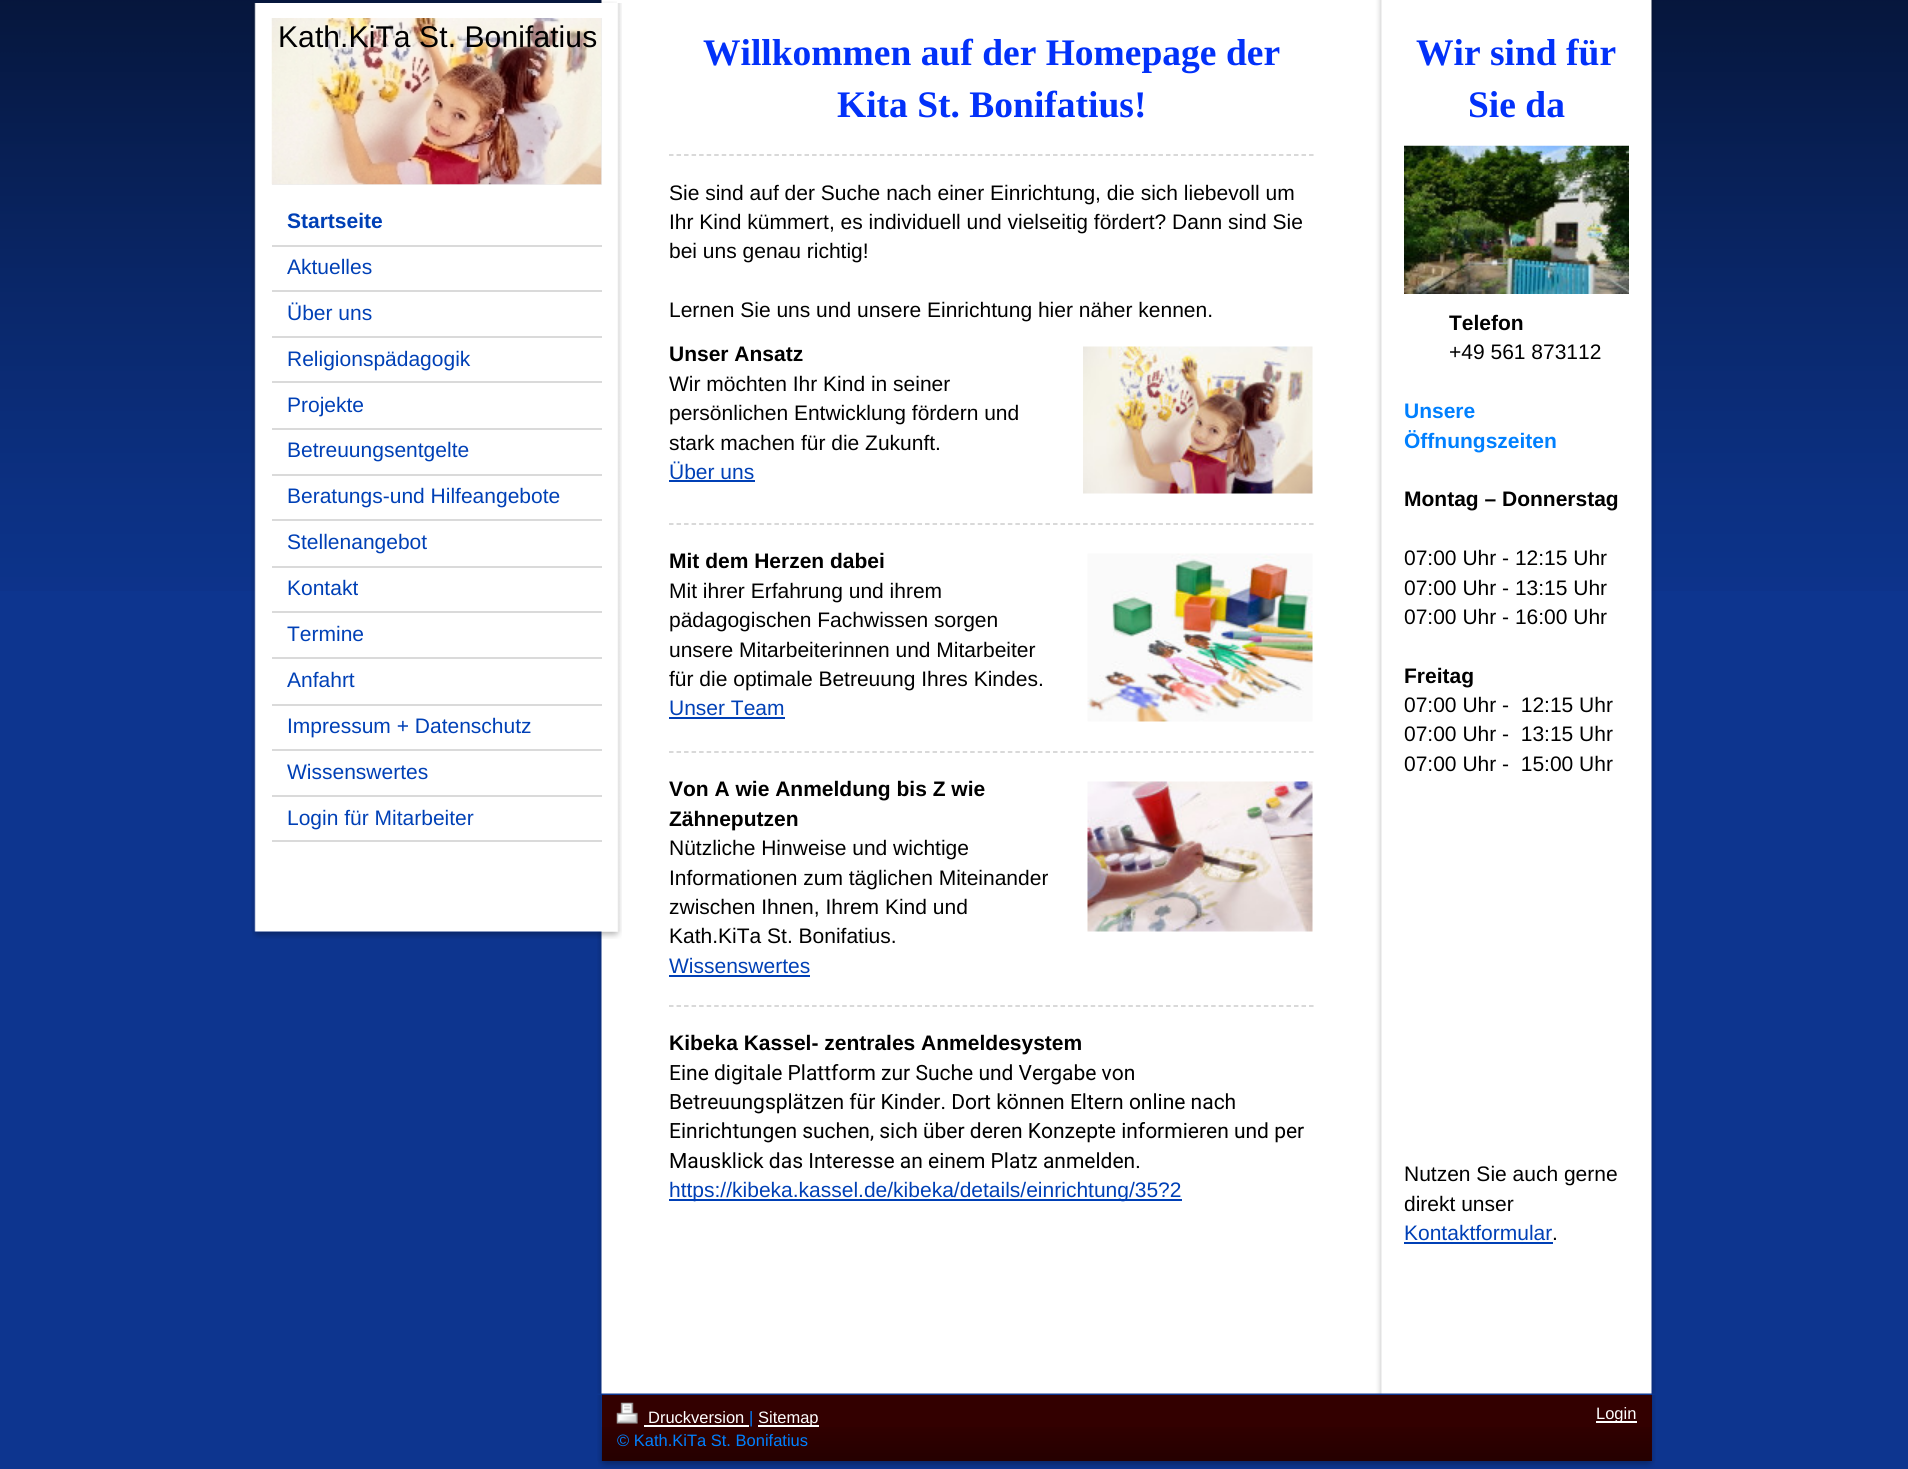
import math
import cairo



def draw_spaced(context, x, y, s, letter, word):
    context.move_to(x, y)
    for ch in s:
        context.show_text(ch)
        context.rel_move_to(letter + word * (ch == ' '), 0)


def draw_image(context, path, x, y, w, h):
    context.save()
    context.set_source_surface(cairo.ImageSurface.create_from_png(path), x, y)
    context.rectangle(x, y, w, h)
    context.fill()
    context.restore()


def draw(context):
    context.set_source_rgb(13 / 255, 53 / 255, 143 / 255)
    context.paint()
    draw_image(context, "images/1.png", 0, 0, 1908, 591)
    draw_image(context, "images/2.png", 597, 0, 1059, 1394)
    draw_image(context, "images/3.png", 601, 1, 16, 2)
    draw_image(context, "images/4.png", 252, 931, 370, 8)
    draw_image(context, "images/5.png", 251, 3, 371, 929)
    context.set_source_rgb(238 / 255, 238 / 255, 238 / 255)
    context.rectangle(272, 18, 330, 167)
    context.fill()
    draw_image(context, "images/6.png", 271, 18, 331, 167)
    context.set_source_rgb(218 / 255, 218 / 255, 218 / 255)
    context.rectangle(272, 245, 330, 2)
    context.fill()
    context.rectangle(272, 290, 330, 2)
    context.fill()
    context.rectangle(272, 336, 330, 2)
    context.fill()
    context.rectangle(272, 381, 330, 2)
    context.fill()
    context.rectangle(272, 428, 330, 2)
    context.fill()
    context.rectangle(272, 474, 330, 2)
    context.fill()
    context.rectangle(272, 519, 330, 2)
    context.fill()
    context.rectangle(272, 566, 330, 2)
    context.fill()
    context.rectangle(272, 611, 330, 2)
    context.fill()
    context.rectangle(272, 657, 330, 2)
    context.fill()
    context.rectangle(272, 704, 330, 2)
    context.fill()
    context.rectangle(272, 749, 330, 2)
    context.fill()
    context.rectangle(272, 795, 330, 2)
    context.fill()
    context.rectangle(272, 840, 330, 2)
    context.fill()
    context.new_path()
    context.move_to(669, 155)
    context.line_to(1314, 155)
    context.set_source_rgb(204 / 255, 204 / 255, 204 / 255)
    context.set_line_width(1.5)
    context.set_dash([4.5, 3.03])
    context.stroke()
    context.set_source_rgb(0, 64 / 255, 182 / 255)
    context.rectangle(669, 480, 86, 2)
    context.fill()
    draw_image(context, "images/7.png", 1083, 346, 230, 148)
    context.new_path()
    context.move_to(669, 524)
    context.line_to(1314, 524)
    context.set_source_rgb(204 / 255, 204 / 255, 204 / 255)
    context.stroke()
    context.set_source_rgb(0, 64 / 255, 182 / 255)
    context.rectangle(669, 717, 116, 2)
    context.fill()
    draw_image(context, "images/8.png", 1087, 553, 226, 169)
    context.new_path()
    context.move_to(669, 752)
    context.line_to(1314, 752)
    context.set_source_rgb(204 / 255, 204 / 255, 204 / 255)
    context.stroke()
    context.set_source_rgb(0, 64 / 255, 182 / 255)
    context.rectangle(669, 975, 141, 2)
    context.fill()
    draw_image(context, "images/9.png", 1087, 781, 226, 151)
    context.new_path()
    context.move_to(669, 1006)
    context.line_to(1314, 1006)
    context.set_source_rgb(204 / 255, 204 / 255, 204 / 255)
    context.stroke()
    context.set_source_rgb(0, 64 / 255, 182 / 255)
    context.rectangle(669, 1199, 513, 2)
    context.fill()
    draw_image(context, "images/10.png", 1404, 145, 225, 149)
    context.rectangle(1404, 1242, 149, 2)
    context.fill()
    draw_image(context, "images/11.png", 598, 1461, 1057, 7)
    draw_image(context, "images/12.png", 597, 1395, 1059, 66)
    context.set_source_rgb(51 / 255, 0, 0)
    context.rectangle(602, 1395, 1050, 66)
    context.fill()
    draw_image(context, "images/13.png", 601, 1427, 1051, 34)
    draw_image(context, "images/14.png", 616, 1402, 22, 22)
    context.set_source_rgb(1, 1, 1)
    context.rectangle(644, 1425, 105, 2)
    context.fill()
    context.rectangle(758, 1425, 61, 2)
    context.fill()
    context.rectangle(1596, 1421, 41, 2)
    context.fill()
    context.select_font_face("Liberation Sans")
    context.set_font_size(30)
    context.set_source_rgb(0, 0, 0)
    draw_spaced(context, 278, 47, "Kath.KiTa St. Bonifatius", 0.1, 0)
    context.select_font_face("Liberation Sans", cairo.FontSlant.NORMAL, cairo.FontWeight.BOLD)
    context.set_font_size(21)
    context.set_source_rgb(0, 64 / 255, 182 / 255)
    context.move_to(287, 228)
    context.show_text("Startseite")
    context.select_font_face("Liberation Sans")
    context.move_to(287, 274)
    context.show_text("Aktuelles")
    context.move_to(287, 320)
    context.show_text("Über uns")
    context.move_to(287, 366)
    context.show_text("Religionspädagogik")
    context.move_to(287, 412)
    context.show_text("Projekte")
    context.move_to(287, 457)
    context.show_text("Betreuungsentgelte")
    context.move_to(287, 503)
    context.show_text("Beratungs-und Hilfeangebote")
    context.move_to(287, 549)
    context.show_text("Stellenangebot")
    context.move_to(287, 595)
    context.show_text("Kontakt")
    context.move_to(287, 641)
    context.show_text("Termine")
    context.move_to(287, 687)
    context.show_text("Anfahrt")
    context.move_to(287, 733)
    context.show_text("Impressum + Datenschutz")
    context.move_to(287, 779)
    context.show_text("Wissenswertes")
    context.move_to(287, 825)
    context.show_text("Login für Mitarbeiter")
    context.select_font_face("Liberation Serif", cairo.FontSlant.NORMAL, cairo.FontWeight.BOLD)
    context.set_font_size(37.5)
    context.set_source_rgb(2 / 255, 49 / 255, 249 / 255)
    context.move_to(703, 65)
    context.show_text("Willkommen auf der Homepage der")
    context.move_to(837, 117)
    context.show_text("Kita St. Bonifatius!")
    context.select_font_face("Liberation Sans")
    context.set_font_size(21)
    context.set_source_rgb(0, 0, 0)
    context.move_to(669, 200)
    context.show_text("Sie sind auf der Suche nach einer Einrichtung, die sich liebevoll um")
    context.move_to(669, 229)
    context.show_text("Ihr Kind kümmert, es individuell und vielseitig fördert? Dann sind Sie")
    context.move_to(669, 258)
    context.show_text("bei uns genau richtig!")
    context.move_to(669, 317)
    context.show_text("Lernen Sie uns und unsere Einrichtung hier näher kennen.")
    context.select_font_face("Liberation Sans", cairo.FontSlant.NORMAL, cairo.FontWeight.BOLD)
    context.move_to(669, 361)
    context.show_text("Unser Ansatz")
    context.select_font_face("Liberation Sans")
    context.move_to(669, 391)
    context.show_text("Wir möchten Ihr Kind in seiner")
    context.move_to(669, 420)
    context.show_text("persönlichen Entwicklung fördern und")
    context.move_to(669, 450)
    context.show_text("stark machen für die Zukunft.")
    context.set_source_rgb(0, 64 / 255, 182 / 255)
    context.move_to(669, 479)
    context.show_text("Über uns")
    context.select_font_face("Liberation Sans", cairo.FontSlant.NORMAL, cairo.FontWeight.BOLD)
    context.set_source_rgb(0, 0, 0)
    context.move_to(669, 568)
    context.show_text("Mit dem Herzen dabei")
    context.select_font_face("Liberation Sans")
    context.move_to(669, 598)
    context.show_text("Mit ihrer Erfahrung und ihrem")
    context.move_to(669, 627)
    context.show_text("pädagogischen Fachwissen sorgen")
    context.move_to(669, 657)
    context.show_text("unsere Mitarbeiterinnen und Mitarbeiter")
    context.move_to(669, 686)
    context.show_text("für die optimale Betreuung Ihres Kindes.")
    context.set_source_rgb(0, 64 / 255, 182 / 255)
    context.move_to(669, 715)
    context.show_text("Unser Team")
    context.select_font_face("Liberation Sans", cairo.FontSlant.NORMAL, cairo.FontWeight.BOLD)
    context.set_source_rgb(0, 0, 0)
    context.move_to(669, 796)
    context.show_text("Von A wie Anmeldung bis Z wie")
    context.move_to(669, 826)
    context.show_text("Zähneputzen")
    context.select_font_face("Liberation Sans")
    context.move_to(669, 855)
    context.show_text("Nützliche Hinweise und wichtige")
    context.move_to(669, 885)
    context.show_text("Informationen zum täglichen Miteinander")
    context.move_to(669, 914)
    context.show_text("zwischen Ihnen, Ihrem Kind und")
    context.move_to(669, 943)
    context.show_text("Kath.KiTa St. Bonifatius.")
    context.set_source_rgb(0, 64 / 255, 182 / 255)
    context.move_to(669, 973)
    context.show_text("Wissenswertes")
    context.select_font_face("Liberation Sans", cairo.FontSlant.NORMAL, cairo.FontWeight.BOLD)
    context.set_source_rgb(0, 0, 0)
    context.move_to(669, 1050)
    context.show_text("Kibeka Kassel- zentrales Anmeldesystem")
    context.select_font_face("Roboto")
    context.move_to(669, 1080)
    context.show_text("Eine digitale Plattform zur Suche und Vergabe von")
    context.move_to(669, 1109)
    context.show_text("Betreuungsplätzen für Kinder. Dort können Eltern online nach")
    context.move_to(669, 1138)
    context.show_text("Einrichtungen suchen, sich über deren Konzepte informieren und per")
    context.move_to(669, 1168)
    context.show_text("Mausklick das Interesse an einem Platz anmelden.")
    context.select_font_face("Liberation Sans")
    context.set_source_rgb(0, 64 / 255, 182 / 255)
    context.move_to(669, 1197)
    context.show_text("https://kibeka.kassel.de/kibeka/details/einrichtung/35?2")
    context.select_font_face("Liberation Serif", cairo.FontSlant.NORMAL, cairo.FontWeight.BOLD)
    context.set_font_size(37.5)
    context.set_source_rgb(2 / 255, 49 / 255, 249 / 255)
    context.move_to(1416, 65)
    context.show_text("Wir sind für")
    context.move_to(1468, 117)
    context.show_text("Sie da")
    context.select_font_face("Liberation Sans", cairo.FontSlant.NORMAL, cairo.FontWeight.BOLD)
    context.set_font_size(21)
    context.set_source_rgb(0, 0, 0)
    context.move_to(1449, 330)
    context.show_text("Telefon")
    context.select_font_face("Liberation Sans")
    context.move_to(1449, 359)
    context.show_text("+49 561 873112")
    context.select_font_face("Liberation Sans", cairo.FontSlant.NORMAL, cairo.FontWeight.BOLD)
    context.set_source_rgb(0, 128 / 255, 1)
    context.move_to(1404, 418)
    context.show_text("Unsere")
    context.move_to(1404, 448)
    context.show_text("Öffnungszeiten")
    context.set_source_rgb(0, 0, 0)
    context.move_to(1404, 506)
    context.show_text("Montag – Donnerstag")
    context.select_font_face("Liberation Sans")
    context.move_to(1404, 565)
    context.show_text("07:00 Uhr - 12:15 Uhr")
    context.move_to(1404, 595)
    context.show_text("07:00 Uhr - 13:15 Uhr")
    context.move_to(1404, 624)
    context.show_text("07:00 Uhr - 16:00 Uhr")
    context.select_font_face("Liberation Sans", cairo.FontSlant.NORMAL, cairo.FontWeight.BOLD)
    context.move_to(1404, 683)
    context.show_text("Freitag")
    context.select_font_face("Liberation Sans")
    context.move_to(1404, 712)
    context.show_text("07:00 Uhr -  12:15 Uhr")
    context.move_to(1404, 741)
    context.show_text("07:00 Uhr -  13:15 Uhr")
    context.move_to(1404, 771)
    context.show_text("07:00 Uhr -  15:00 Uhr")
    context.move_to(1404, 1181)
    context.show_text("Nutzen Sie auch gerne")
    context.move_to(1404, 1211)
    context.show_text("direkt unser")
    context.set_source_rgb(0, 64 / 255, 182 / 255)
    context.move_to(1404, 1240)
    context.show_text("Kontaktformular")
    context.set_source_rgb(0, 0, 0)
    context.move_to(1552, 1240)
    context.show_text(".")
    context.set_font_size(16.5)
    context.set_source_rgb(1, 1, 1)
    context.move_to(648, 1423)
    context.show_text("Druckversion")
    context.set_source_rgb(0, 128 / 255, 1)
    context.move_to(749, 1423)
    context.show_text("|")
    context.set_source_rgb(1, 1, 1)
    context.move_to(758, 1423)
    context.show_text("Sitemap")
    context.save()
    context.rectangle(617, 1403, 1020, 51)
    context.clip()
    context.set_source_rgb(0, 128 / 255, 1)
    context.move_to(617, 1446)
    context.show_text("© Kath.KiTa St. Bonifatius")
    context.restore()
    context.move_to(1596, 1419)
    context.show_text("Login")


surface = cairo.ImageSurface(cairo.Format.RGB24, 1908, 1469)
context = cairo.Context(surface)
options = cairo.FontOptions()
options.set_hint_metrics(cairo.HintMetrics.OFF)
options.set_hint_style(cairo.HintStyle.NONE)
context.set_font_options(options)
context.set_miter_limit(4)
draw(context)
surface.write_to_png("out.png")
